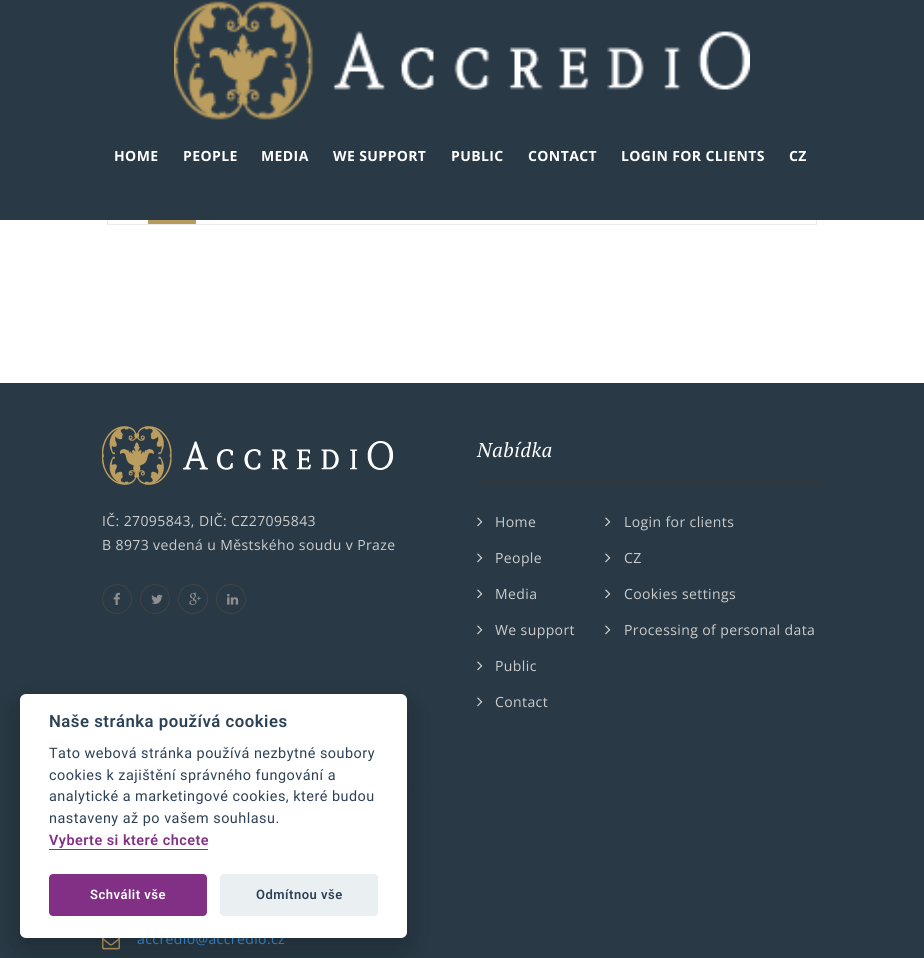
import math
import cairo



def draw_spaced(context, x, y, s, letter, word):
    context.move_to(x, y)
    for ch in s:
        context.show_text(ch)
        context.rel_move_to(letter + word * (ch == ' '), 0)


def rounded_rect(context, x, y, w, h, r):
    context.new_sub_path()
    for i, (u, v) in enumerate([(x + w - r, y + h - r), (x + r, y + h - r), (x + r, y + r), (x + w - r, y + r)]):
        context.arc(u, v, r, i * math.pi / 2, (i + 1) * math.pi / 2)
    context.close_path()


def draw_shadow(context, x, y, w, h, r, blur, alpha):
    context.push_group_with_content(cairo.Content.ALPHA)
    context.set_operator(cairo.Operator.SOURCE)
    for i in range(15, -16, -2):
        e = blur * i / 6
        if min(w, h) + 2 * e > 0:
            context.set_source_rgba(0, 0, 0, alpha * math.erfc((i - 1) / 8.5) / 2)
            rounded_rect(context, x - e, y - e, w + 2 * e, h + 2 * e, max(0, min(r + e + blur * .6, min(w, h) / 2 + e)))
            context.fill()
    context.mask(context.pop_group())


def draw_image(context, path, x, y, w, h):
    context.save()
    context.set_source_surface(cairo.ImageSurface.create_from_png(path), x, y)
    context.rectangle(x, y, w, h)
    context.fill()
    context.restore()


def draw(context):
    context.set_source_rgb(1, 1, 1)
    context.paint()
    context.rectangle(107.5, -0.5, 709, 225)
    context.set_source_rgb(234 / 255, 234 / 255, 234 / 255)
    context.set_line_width(1)
    context.stroke()
    context.set_source_rgb(184 / 255, 155 / 255, 94 / 255)
    context.rectangle(148, 220, 48, 4)
    context.fill()
    context.set_source_rgb(41 / 255, 58 / 255, 70 / 255)
    context.rectangle(0, 0, 924, 220)
    context.fill()
    draw_image(context, "images/1.png", 174, 1, 576, 119)
    context.rectangle(0, 383, 924, 575)
    context.fill()
    draw_image(context, "images/2.png", 102, 426, 291, 59)
    context.arc(117, 599, 14.5, 0, 2 * math.pi)
    context.set_source_rgb(65 / 255, 66 / 255, 66 / 255)
    context.stroke()
    draw_image(context, "images/3.png", 113, 592, 7, 13)
    context.arc(155, 599, 14.5, 0, 2 * math.pi)
    context.stroke()
    draw_image(context, "images/4.png", 151, 594, 12, 10)
    context.arc(193, 599, 14.5, 0, 2 * math.pi)
    context.stroke()
    draw_image(context, "images/5.png", 189, 592, 12, 13)
    context.arc(231, 599, 14.5, 0, 2 * math.pi)
    context.stroke()
    draw_image(context, "images/6.png", 227, 594, 12, 11)
    context.set_source_rgb(54 / 255, 54 / 255, 55 / 255)
    context.rectangle(477, 482, 345, 1)
    context.fill()
    draw_image(context, "images/7.png", 477, 517, 6, 10)
    draw_image(context, "images/7.png", 477, 553, 6, 10)
    draw_image(context, "images/7.png", 477, 589, 6, 10)
    draw_image(context, "images/7.png", 477, 625, 6, 10)
    draw_image(context, "images/7.png", 477, 661, 6, 10)
    draw_image(context, "images/7.png", 477, 697, 6, 10)
    draw_image(context, "images/7.png", 605, 517, 6, 10)
    draw_image(context, "images/7.png", 605, 553, 6, 10)
    draw_image(context, "images/7.png", 605, 589, 6, 10)
    draw_image(context, "images/7.png", 605, 625, 6, 10)
    context.rectangle(407, 789, 40, 1)
    context.fill()
    draw_image(context, "images/8.png", 102, 938, 18, 12)
    context.set_source_rgb(2 / 255, 2 / 255, 3 / 255)
    draw_shadow(context, 20, 704, 387, 244, 6, 15, 0.28)
    context.select_font_face("Open Sans", cairo.FontSlant.NORMAL, cairo.FontWeight.BOLD)
    context.set_font_size(14)
    context.set_source_rgb(1, 1, 1)
    draw_spaced(context, 114, 161, "HOME", 0.4, 0)
    draw_spaced(context, 183, 161, "PEOPLE", 0.4, 0)
    draw_spaced(context, 261, 161, "MEDIA", 0.4, 0)
    draw_spaced(context, 333, 161, "WE SUPPORT", 0.4, 0)
    draw_spaced(context, 451, 161, "PUBLIC", 0.4, 0)
    draw_spaced(context, 528, 161, "CONTACT", 0.4, 0)
    draw_spaced(context, 621, 161, "LOGIN FOR CLIENTS", 0.4, 0)
    draw_spaced(context, 789, 161, "CZ", 0.4, 0)
    context.select_font_face("Open Sans")
    context.set_source_rgb(204 / 255, 204 / 255, 204 / 255)
    draw_spaced(context, 102, 526, "IČ: 27095843, DIČ: CZ27095843", 0.4, 0)
    draw_spaced(context, 102, 550, "B 8973 vedená u Městského soudu v Praze", 0.4, 0)
    context.select_font_face("PT Serif", cairo.FontSlant.ITALIC)
    context.set_font_size(20)
    context.set_source_rgb(1, 1, 1)
    draw_spaced(context, 477, 457, "Nabídka", 0.5, 0)
    context.select_font_face("Open Sans")
    context.set_font_size(14)
    context.set_source_rgb(204 / 255, 204 / 255, 204 / 255)
    draw_spaced(context, 495, 527, "Home", 0.4, 0)
    draw_spaced(context, 495, 563, "People", 0.4, 0)
    draw_spaced(context, 495, 599, "Media", 0.4, 0)
    draw_spaced(context, 495, 635, "We support", 0.4, 0)
    draw_spaced(context, 495, 671, "Public", 0.4, 0)
    draw_spaced(context, 495, 707, "Contact", 0.4, 0)
    draw_spaced(context, 624, 527, "Login for clients", 0.4, 0)
    draw_spaced(context, 624, 563, "CZ", 0.4, 0)
    draw_spaced(context, 624, 599, "Cookies settings", 0.4, 0)
    draw_spaced(context, 624, 635, "Processing of personal data", 0.4, 0)
    context.set_source_rgb(51 / 255, 122 / 255, 183 / 255)
    draw_spaced(context, 137, 944, "accredio@accredio.cz", 0.4, 0)
    context.set_source_rgb(1, 1, 1)
    rounded_rect(context, 20, 694, 387, 244, 6)
    context.fill()
    context.select_font_face("Roboto SemiBold")
    context.set_font_size(16.75)
    context.set_source_rgb(45 / 255, 65 / 255, 86 / 255)
    draw_spaced(context, 49, 727, "Naše stránka používá cookies", 0.5, 0)
    context.select_font_face("Roboto")
    context.set_font_size(14.4)
    draw_spaced(context, 49, 758, "Tato webová stránka používá nezbytné soubory", 0.5, 0)
    draw_spaced(context, 49, 780, "cookies k zajištění správného fungování a", 0.5, 0)
    draw_spaced(context, 49, 801, "analytické a marketingové cookies, které budou", 0.5, 0)
    draw_spaced(context, 49, 823, "nastaveny až po vašem souhlasu.", 0.5, 0)
    context.select_font_face("Roboto SemiBold")
    context.set_source_rgb(130 / 255, 47 / 255, 134 / 255)
    draw_spaced(context, 49, 845, "Vyberte si které chcete", 0.5, 0)
    context.rectangle(49, 849, 159, 1)
    context.fill()
    rounded_rect(context, 49, 874, 158, 42, 4)
    context.fill()
    context.set_font_size(13)
    context.set_source_rgb(1, 1, 1)
    draw_spaced(context, 90, 899, "Schválit vše", 0.5, 0)
    context.set_source_rgb(234 / 255, 239 / 255, 242 / 255)
    rounded_rect(context, 220, 874, 158, 42, 4)
    context.fill()
    context.set_source_rgb(45 / 255, 65 / 255, 86 / 255)
    draw_spaced(context, 256, 899, "Odmítnou vše", 0.5, 0)


surface = cairo.ImageSurface(cairo.Format.RGB24, 924, 958)
context = cairo.Context(surface)
options = cairo.FontOptions()
options.set_hint_metrics(cairo.HintMetrics.OFF)
options.set_hint_style(cairo.HintStyle.NONE)
context.set_font_options(options)
context.set_miter_limit(4)
draw(context)
surface.write_to_png("out.png")
